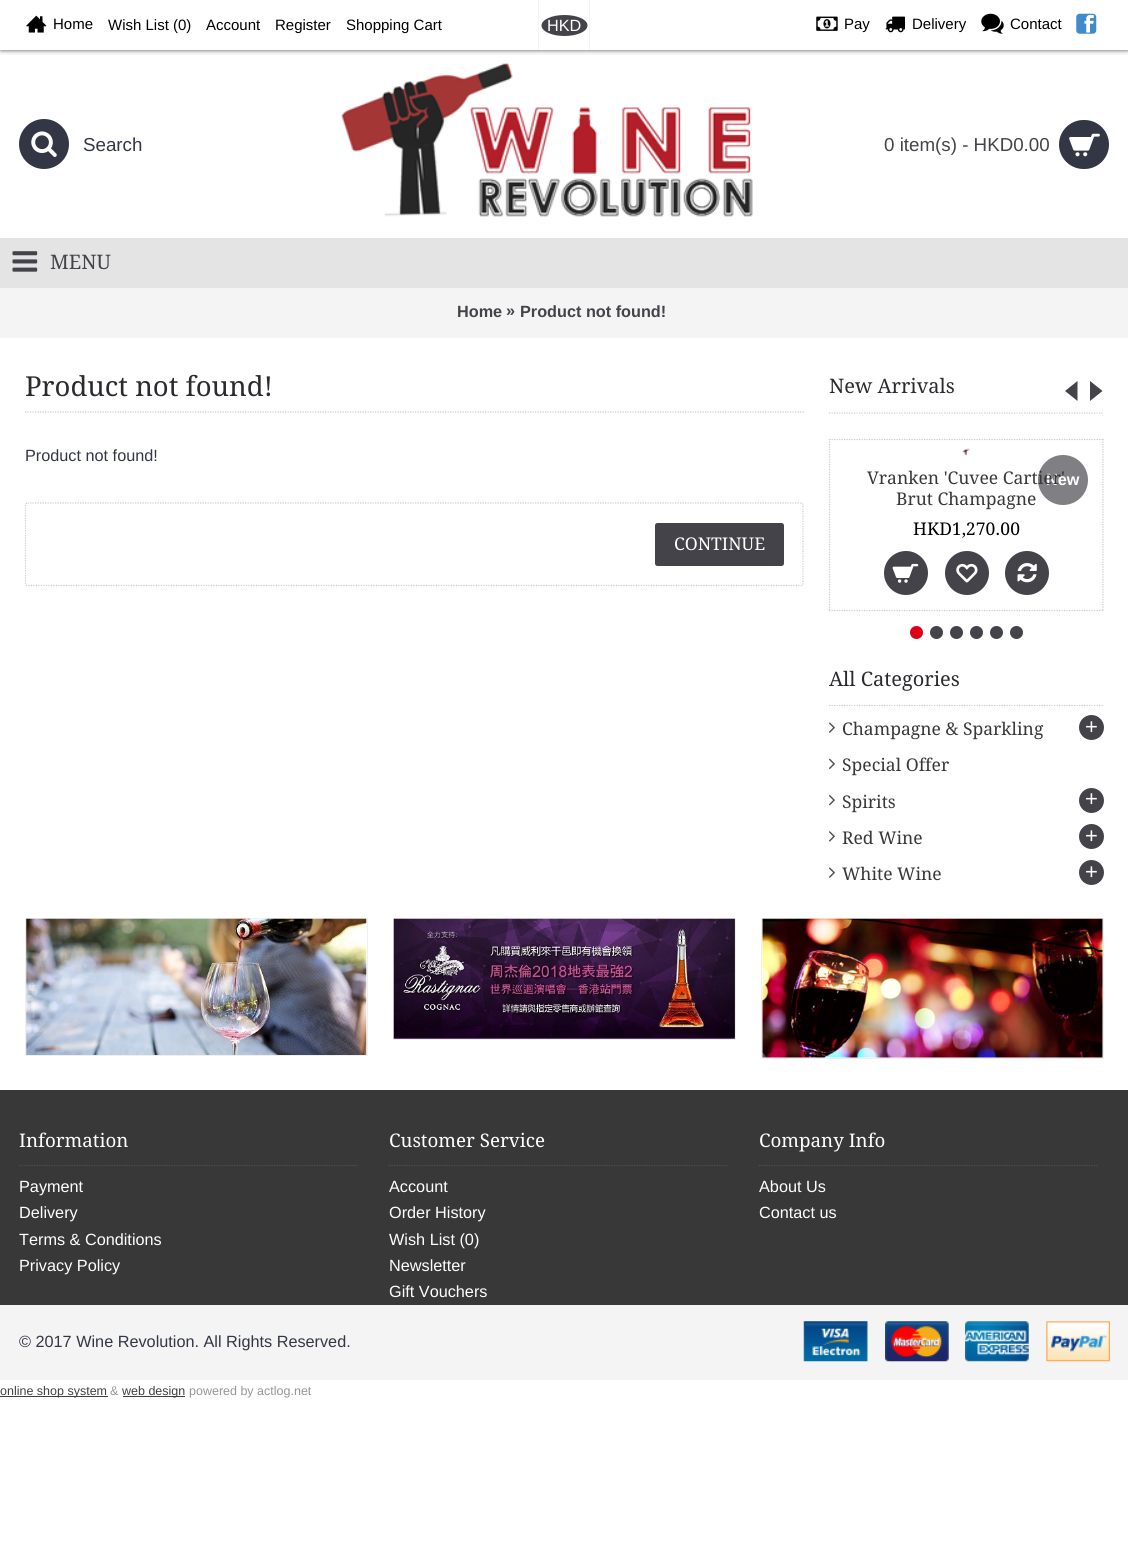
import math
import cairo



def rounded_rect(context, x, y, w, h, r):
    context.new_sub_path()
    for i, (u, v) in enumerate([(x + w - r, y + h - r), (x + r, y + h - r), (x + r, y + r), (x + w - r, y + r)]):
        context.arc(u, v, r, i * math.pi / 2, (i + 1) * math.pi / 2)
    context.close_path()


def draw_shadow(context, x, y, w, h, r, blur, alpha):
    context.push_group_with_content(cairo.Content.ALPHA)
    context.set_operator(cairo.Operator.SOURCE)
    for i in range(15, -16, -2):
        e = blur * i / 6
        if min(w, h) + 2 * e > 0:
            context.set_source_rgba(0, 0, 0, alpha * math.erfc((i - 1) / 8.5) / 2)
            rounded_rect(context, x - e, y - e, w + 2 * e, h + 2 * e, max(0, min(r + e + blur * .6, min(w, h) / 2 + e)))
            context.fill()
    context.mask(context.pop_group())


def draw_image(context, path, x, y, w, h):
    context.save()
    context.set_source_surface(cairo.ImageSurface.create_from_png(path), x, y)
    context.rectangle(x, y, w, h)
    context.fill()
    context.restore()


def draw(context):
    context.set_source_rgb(1, 1, 1)
    context.paint()
    context.save()
    context.rectangle(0, 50, 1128, 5)
    context.clip()
    context.set_source_rgb(0, 0, 0)
    draw_shadow(context, 1, 3, 1127, 47, 0, 2.5, 0.7)
    context.restore()
    draw_image(context, "images/1.png", 26, 15, 21, 18)
    context.set_source_rgb(244 / 255, 244 / 255, 244 / 255)
    context.rectangle(589, 0, 1, 50)
    context.fill()
    context.rectangle(538, 0, 1, 50)
    context.fill()
    context.set_source_rgb(68 / 255, 67 / 255, 73 / 255)
    context.new_path()
    context.move_to(564.5, 15)
    context.curve_to(577, 15, 587.5, 19.5, 587.5, 25.5)
    context.curve_to(587.5, 31.5, 577, 36, 564.5, 36)
    context.curve_to(552, 36, 541.5, 31.5, 541.5, 25.5)
    context.curve_to(541.5, 19.5, 552, 15, 564.5, 15)
    context.close_path()
    context.fill()
    draw_image(context, "images/2.png", 816, 16, 22, 15)
    draw_image(context, "images/3.png", 885, 16, 20, 17)
    draw_image(context, "images/4.png", 981, 13, 23, 21)
    draw_image(context, "images/5.png", 1076, 13, 21, 21)
    context.set_source_rgb(51 / 255, 55 / 255, 69 / 255)
    context.arc(44, 144, 25, 0, 2 * math.pi)
    context.fill()
    draw_image(context, "images/6.png", 31, 131, 26, 26)
    draw_image(context, "images/7.png", 341, 62, 412, 155)
    rounded_rect(context, 1059, 120, 50, 49, 24.5)
    context.fill()
    draw_image(context, "images/8.png", 1069, 133, 31, 24)
    context.set_source_rgb(228 / 255, 228 / 255, 228 / 255)
    context.rectangle(0, 238, 1128, 50)
    context.fill()
    draw_image(context, "images/9.png", 12, 251, 26, 21)
    context.set_source_rgb(244 / 255, 244 / 255, 244 / 255)
    context.rectangle(0, 288, 1128, 50)
    context.fill()
    context.new_path()
    context.move_to(25, 412)
    context.line_to(804, 412)
    context.set_source_rgb(204 / 255, 204 / 255, 204 / 255)
    context.set_line_width(1.2)
    context.set_dash([1.25, 1.25])
    context.stroke()
    context.new_path()
    context.move_to(27.5, 503)
    context.line_to(801, 503)
    context.curve_to(802.5, 503, 803, 504, 803, 505)
    context.line_to(803, 584)
    context.curve_to(803, 585, 802.5, 585.5, 801, 585.5)
    context.line_to(27.5, 585.5)
    context.curve_to(26.5, 585.5, 25.5, 585, 25.5, 584)
    context.line_to(25.5, 505)
    context.curve_to(25.5, 504, 26.5, 503, 27.5, 503)
    context.close_path()
    context.stroke()
    context.set_source_rgb(68 / 255, 67 / 255, 73 / 255)
    rounded_rect(context, 655, 523, 129, 43, 2.5)
    context.fill()
    context.new_path()
    context.move_to(829, 413)
    context.line_to(1104, 413)
    context.set_source_rgb(204 / 255, 204 / 255, 204 / 255)
    context.stroke()
    context.set_source_rgb(68 / 255, 67 / 255, 73 / 255)
    context.new_path()
    context.move_to(1077.5, 401)
    context.line_to(1077.5, 381)
    context.line_to(1065, 391)
    context.close_path()
    context.move_to(1090, 381)
    context.line_to(1090, 401)
    context.line_to(1102.5, 391)
    context.close_path()
    context.fill()
    context.set_source_rgb(221 / 255, 0, 23 / 255)
    context.arc(916.5, 632.5, 6.5, 0, 2 * math.pi)
    context.fill()
    context.set_source_rgb(68 / 255, 67 / 255, 73 / 255)
    context.arc(936.5, 632.5, 6.5, 0, 2 * math.pi)
    context.fill()
    context.arc(956.5, 632.5, 6.5, 0, 2 * math.pi)
    context.fill()
    context.arc(976.5, 632.5, 6.5, 0, 2 * math.pi)
    context.fill()
    context.arc(996.5, 632.5, 6.5, 0, 2 * math.pi)
    context.fill()
    context.arc(1016.5, 632.5, 6.5, 0, 2 * math.pi)
    context.fill()
    context.new_path()
    context.move_to(829, 439.5)
    context.line_to(1104, 439.5)
    context.set_source_rgb(204 / 255, 204 / 255, 204 / 255)
    context.stroke()
    context.new_path()
    context.move_to(1103, 439)
    context.line_to(1103, 611)
    context.stroke()
    context.new_path()
    context.move_to(829, 610.5)
    context.line_to(1104, 610.5)
    context.stroke()
    context.new_path()
    context.move_to(829.5, 439)
    context.line_to(829.5, 611)
    context.stroke()
    context.set_source_rgb(68 / 255, 67 / 255, 73 / 255)
    context.arc(906, 573, 22, 0, 2 * math.pi)
    context.fill()
    draw_image(context, "images/10.png", 892, 563, 27, 20)
    context.arc(967, 573, 22, 0, 2 * math.pi)
    context.fill()
    draw_image(context, "images/11.png", 956, 563, 22, 20)
    context.arc(1027, 573, 22, 0, 2 * math.pi)
    context.fill()
    draw_image(context, "images/12.png", 1017, 563, 20, 20)
    draw_image(context, "images/13.png", 962, 448, 8, 7)
    context.set_source_rgb(128 / 255, 127 / 255, 131 / 255)
    context.arc(1063, 480, 25, 0, 2 * math.pi)
    context.fill()
    context.new_path()
    context.move_to(829, 705.5)
    context.line_to(1104, 705.5)
    context.set_source_rgb(204 / 255, 204 / 255, 204 / 255)
    context.stroke()
    draw_image(context, "images/14.png", 829, 722, 6, 11)
    context.set_source_rgb(68 / 255, 67 / 255, 73 / 255)
    context.arc(1091.5, 727.5, 12.5, 0, 2 * math.pi)
    context.fill()
    draw_image(context, "images/15.png", 829, 758, 6, 12)
    draw_image(context, "images/16.png", 829, 795, 6, 11)
    context.arc(1091.5, 800.5, 12.5, 0, 2 * math.pi)
    context.fill()
    draw_image(context, "images/17.png", 829, 831, 6, 11)
    context.arc(1091.5, 836.5, 12.5, 0, 2 * math.pi)
    context.fill()
    draw_image(context, "images/14.png", 829, 867, 6, 11)
    context.arc(1091.5, 872.5, 12.5, 0, 2 * math.pi)
    context.fill()
    context.rectangle(25.5, 918.5, 342, 137)
    context.set_source_rgb(239 / 255, 239 / 255, 239 / 255)
    context.set_line_width(1)
    context.set_dash([])
    context.stroke()
    draw_image(context, "images/18.png", 26, 918, 341, 137)
    context.rectangle(393.5, 918.5, 342, 121)
    context.stroke()
    draw_image(context, "images/19.png", 393, 918, 342, 121)
    context.rectangle(761.5, 918.5, 342, 140)
    context.stroke()
    draw_image(context, "images/20.png", 762, 918, 341, 140)
    context.set_source_rgb(56 / 255, 56 / 255, 56 / 255)
    context.rectangle(0, 1090, 1128, 215)
    context.fill()
    context.new_path()
    context.move_to(19, 1165.5)
    context.line_to(357.5, 1165.5)
    context.set_source_rgb(80 / 255, 80 / 255, 80 / 255)
    context.set_line_width(1.2)
    context.set_dash([1.25, 1.25])
    context.stroke()
    context.new_path()
    context.move_to(389, 1165.5)
    context.line_to(727.5, 1165.5)
    context.stroke()
    context.new_path()
    context.move_to(759, 1165.5)
    context.line_to(1097.5, 1165.5)
    context.stroke()
    context.set_source_rgb(244 / 255, 244 / 255, 244 / 255)
    context.rectangle(0, 1305, 1128, 75)
    context.fill()
    draw_image(context, "images/21.png", 803, 1321, 65, 41)
    draw_image(context, "images/22.png", 885, 1321, 64, 41)
    draw_image(context, "images/23.png", 965, 1321, 64, 41)
    draw_image(context, "images/24.png", 1046, 1321, 64, 41)
    context.set_source_rgb(64 / 255, 64 / 255, 64 / 255)
    context.rectangle(0, 1396, 108, 1)
    context.fill()
    context.rectangle(123, 1396, 62, 1)
    context.fill()
    context.select_font_face("Liberation Sans")
    context.set_font_size(15)
    context.set_source_rgb(0, 0, 0)
    context.move_to(53, 29)
    context.show_text("Home")
    context.move_to(108, 30)
    context.show_text("Wish List (0)")
    context.move_to(206, 30)
    context.show_text("Account")
    context.move_to(275, 30)
    context.show_text("Register")
    context.move_to(346, 30)
    context.show_text("Shopping Cart")
    context.set_font_size(16.25)
    context.set_source_rgb(1, 1, 1)
    context.move_to(547, 31)
    context.show_text("HKD")
    context.set_font_size(15)
    context.set_source_rgb(0, 0, 0)
    context.move_to(844, 29)
    context.show_text("Pay")
    context.move_to(912, 29)
    context.show_text("Delivery")
    context.move_to(1010, 29)
    context.show_text("Contact")
    context.set_font_size(18.75)
    context.set_source_rgb(51 / 255, 55 / 255, 69 / 255)
    context.move_to(83, 151)
    context.show_text("Search")
    context.set_source_rgb(68 / 255, 67 / 255, 73 / 255)
    context.move_to(884, 151)
    context.show_text("0 item(s) - HKD0.00")
    context.select_font_face("Droid Serif")
    context.set_font_size(20)
    context.move_to(50, 269)
    context.show_text("MENU")
    context.select_font_face("Liberation Sans", cairo.FontSlant.NORMAL, cairo.FontWeight.BOLD)
    context.set_font_size(16.25)
    context.move_to(457, 317)
    context.show_text("Home")
    context.move_to(506, 316)
    context.show_text("»")
    context.move_to(520, 317)
    context.show_text("Product not found!")
    context.select_font_face("Droid Serif")
    context.set_font_size(27.5)
    context.set_source_rgb(42 / 255, 43 / 255, 46 / 255)
    context.move_to(25, 396)
    context.show_text("Product not found!")
    context.select_font_face("Liberation Sans")
    context.set_font_size(16.25)
    context.set_source_rgb(51 / 255, 55 / 255, 69 / 255)
    context.move_to(25, 461)
    context.show_text("Product not found!")
    context.select_font_face("Droid Serif")
    context.set_font_size(17.5)
    context.set_source_rgb(1, 1, 1)
    context.move_to(674, 550)
    context.show_text("CONTINUE")
    context.set_font_size(20)
    context.set_source_rgb(42 / 255, 43 / 255, 46 / 255)
    context.move_to(829, 393)
    context.show_text("New Arrivals")
    context.set_font_size(17.5)
    context.set_source_rgb(56 / 255, 56 / 255, 56 / 255)
    context.move_to(896, 505)
    context.show_text("Brut Champagne")
    context.set_source_rgb(0, 0, 0)
    context.move_to(913, 535)
    context.show_text("HKD1,270.00")
    context.select_font_face("Liberation Sans", cairo.FontSlant.NORMAL, cairo.FontWeight.BOLD)
    context.set_font_size(16.25)
    context.set_source_rgb(1, 1, 1)
    context.move_to(1046, 485)
    context.show_text("New")
    context.select_font_face("Droid Serif")
    context.set_font_size(17.5)
    context.set_source_rgb(56 / 255, 56 / 255, 56 / 255)
    context.move_to(867, 484)
    context.show_text("Vranken 'Cuvee Cartier'")
    context.set_font_size(20)
    context.set_source_rgb(42 / 255, 43 / 255, 46 / 255)
    context.move_to(829, 686)
    context.show_text("All Categories")
    context.set_font_size(17.5)
    context.set_source_rgb(56 / 255, 56 / 255, 56 / 255)
    context.move_to(842, 735)
    context.show_text("Champagne & Sparkling")
    context.select_font_face("Liberation Sans")
    context.set_font_size(22)
    context.set_source_rgb(1, 1, 1)
    context.move_to(1085, 734)
    context.show_text("+")
    context.select_font_face("Droid Serif")
    context.set_font_size(17.5)
    context.set_source_rgb(56 / 255, 56 / 255, 56 / 255)
    context.move_to(842, 771)
    context.show_text("Special Offer")
    context.move_to(842, 808)
    context.show_text("Spirits")
    context.select_font_face("Liberation Sans")
    context.set_font_size(22)
    context.set_source_rgb(1, 1, 1)
    context.move_to(1085, 806)
    context.show_text("+")
    context.select_font_face("Droid Serif")
    context.set_font_size(17.5)
    context.set_source_rgb(56 / 255, 56 / 255, 56 / 255)
    context.move_to(842, 844)
    context.show_text("Red Wine")
    context.select_font_face("Liberation Sans")
    context.set_font_size(22)
    context.set_source_rgb(1, 1, 1)
    context.move_to(1085, 843)
    context.show_text("+")
    context.select_font_face("Droid Serif")
    context.set_font_size(17.5)
    context.set_source_rgb(56 / 255, 56 / 255, 56 / 255)
    context.move_to(842, 880)
    context.show_text("White Wine")
    context.select_font_face("Liberation Sans")
    context.set_font_size(22)
    context.set_source_rgb(1, 1, 1)
    context.move_to(1085, 879)
    context.show_text("+")
    context.select_font_face("Droid Serif")
    context.set_font_size(18.75)
    context.move_to(19, 1147)
    context.show_text("Information")
    context.select_font_face("Liberation Sans")
    context.set_font_size(16.25)
    context.move_to(19, 1192)
    context.show_text("Payment")
    context.move_to(19, 1218)
    context.show_text("Delivery")
    context.move_to(19, 1245)
    context.show_text("Terms & Conditions")
    context.move_to(19, 1271)
    context.show_text("Privacy Policy")
    context.select_font_face("Droid Serif")
    context.set_font_size(18.75)
    context.move_to(389, 1147)
    context.show_text("Customer Service")
    context.select_font_face("Liberation Sans")
    context.set_font_size(16.25)
    context.move_to(389, 1192)
    context.show_text("Account")
    context.move_to(389, 1218)
    context.show_text("Order History")
    context.move_to(389, 1245)
    context.show_text("Wish List (0)")
    context.move_to(389, 1271)
    context.show_text("Newsletter")
    context.move_to(389, 1297)
    context.show_text("Gift Vouchers")
    context.select_font_face("Droid Serif")
    context.set_font_size(18.75)
    context.move_to(759, 1147)
    context.show_text("Company Info")
    context.select_font_face("Liberation Sans")
    context.set_font_size(16.25)
    context.move_to(759, 1192)
    context.show_text("About Us")
    context.move_to(759, 1218)
    context.show_text("Contact us")
    context.set_source_rgb(51 / 255, 55 / 255, 69 / 255)
    context.move_to(19, 1347)
    context.show_text("© 2017 Wine Revolution. All Rights Reserved.")
    context.set_font_size(12.5)
    context.set_source_rgb(64 / 255, 64 / 255, 64 / 255)
    context.move_to(0, 1395)
    context.show_text("online shop system")
    context.set_source_rgb(150 / 255, 150 / 255, 150 / 255)
    context.move_to(110, 1395)
    context.show_text("&")
    context.set_source_rgb(64 / 255, 64 / 255, 64 / 255)
    context.move_to(122, 1395)
    context.show_text("web design")
    context.set_source_rgb(150 / 255, 150 / 255, 150 / 255)
    context.move_to(189, 1395)
    context.show_text("powered by actlog.net")


surface = cairo.ImageSurface(cairo.Format.RGB24, 1128, 1563)
context = cairo.Context(surface)
options = cairo.FontOptions()
options.set_hint_metrics(cairo.HintMetrics.OFF)
options.set_hint_style(cairo.HintStyle.NONE)
context.set_font_options(options)
context.set_miter_limit(4)
draw(context)
surface.write_to_png("out.png")
